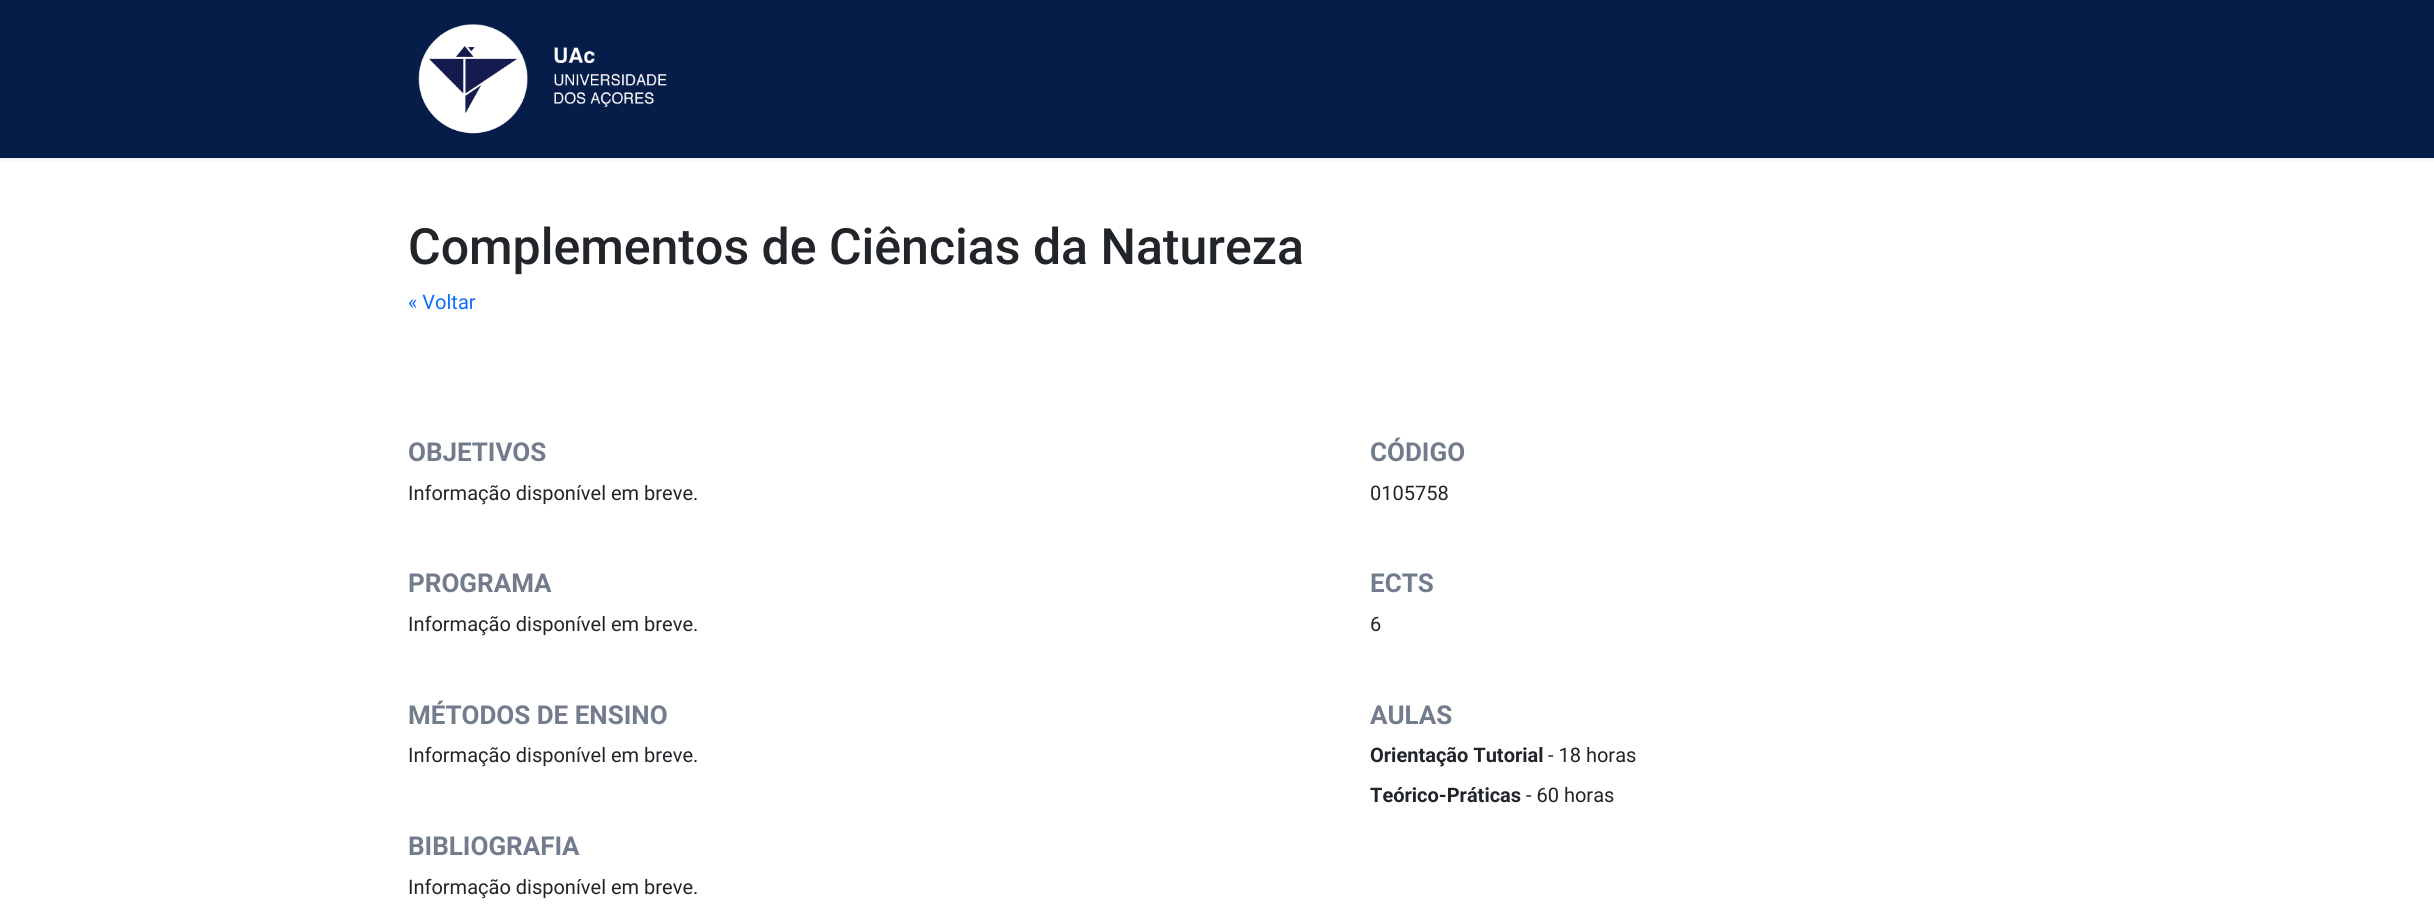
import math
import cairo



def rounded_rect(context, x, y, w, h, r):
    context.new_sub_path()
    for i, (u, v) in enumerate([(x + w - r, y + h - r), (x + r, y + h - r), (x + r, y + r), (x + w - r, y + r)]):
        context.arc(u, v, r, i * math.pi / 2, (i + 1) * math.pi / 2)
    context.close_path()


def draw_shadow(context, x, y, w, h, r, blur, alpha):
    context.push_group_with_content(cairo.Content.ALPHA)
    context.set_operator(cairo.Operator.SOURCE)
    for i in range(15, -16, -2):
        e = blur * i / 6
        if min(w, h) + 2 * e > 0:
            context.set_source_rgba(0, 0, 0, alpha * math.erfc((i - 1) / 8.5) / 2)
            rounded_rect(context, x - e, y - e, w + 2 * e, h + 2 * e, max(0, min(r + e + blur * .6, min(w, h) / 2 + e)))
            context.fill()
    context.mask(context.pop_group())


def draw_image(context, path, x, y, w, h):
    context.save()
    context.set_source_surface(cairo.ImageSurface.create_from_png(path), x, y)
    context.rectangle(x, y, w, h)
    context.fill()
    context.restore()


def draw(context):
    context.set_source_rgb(1, 1, 1)
    context.paint()
    context.set_source_rgb(0, 0, 0)
    draw_shadow(context, 0, 3, 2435, 157, 0, 2.5, 0.07)
    context.set_source_rgb(7 / 255, 29 / 255, 73 / 255)
    context.rectangle(0, 0, 2434, 158)
    context.fill()
    draw_image(context, "images/1.png", 418, 24, 249, 110)
    context.select_font_face("Roboto Medium")
    context.set_font_size(50)
    context.set_source_rgb(33 / 255, 37 / 255, 41 / 255)
    context.move_to(408, 264)
    context.show_text("Complementos de Ciências da Natureza")
    context.select_font_face("Roboto")
    context.set_font_size(20)
    context.set_source_rgb(13 / 255, 110 / 255, 253 / 255)
    context.move_to(408, 309)
    context.show_text("« Voltar")
    context.select_font_face("Roboto", cairo.FontSlant.NORMAL, cairo.FontWeight.BOLD)
    context.set_font_size(26)
    context.set_source_rgb(115 / 255, 124 / 255, 141 / 255)
    context.move_to(408, 461)
    context.show_text("OBJETIVOS")
    context.select_font_face("Roboto")
    context.set_font_size(20)
    context.set_source_rgb(33 / 255, 37 / 255, 41 / 255)
    context.move_to(408, 500)
    context.show_text("Informação disponível em breve.")
    context.select_font_face("Roboto", cairo.FontSlant.NORMAL, cairo.FontWeight.BOLD)
    context.set_font_size(26)
    context.set_source_rgb(115 / 255, 124 / 255, 141 / 255)
    context.move_to(408, 592)
    context.show_text("PROGRAMA")
    context.select_font_face("Roboto")
    context.set_font_size(20)
    context.set_source_rgb(33 / 255, 37 / 255, 41 / 255)
    context.move_to(408, 631)
    context.show_text("Informação disponível em breve.")
    context.select_font_face("Roboto", cairo.FontSlant.NORMAL, cairo.FontWeight.BOLD)
    context.set_font_size(26)
    context.set_source_rgb(115 / 255, 124 / 255, 141 / 255)
    context.move_to(408, 724)
    context.show_text("MÉTODOS DE ENSINO")
    context.select_font_face("Roboto")
    context.set_font_size(20)
    context.set_source_rgb(33 / 255, 37 / 255, 41 / 255)
    context.move_to(408, 762)
    context.show_text("Informação disponível em breve.")
    context.select_font_face("Roboto", cairo.FontSlant.NORMAL, cairo.FontWeight.BOLD)
    context.set_font_size(26)
    context.set_source_rgb(115 / 255, 124 / 255, 141 / 255)
    context.move_to(408, 855)
    context.show_text("BIBLIOGRAFIA")
    context.select_font_face("Roboto")
    context.set_font_size(20)
    context.set_source_rgb(33 / 255, 37 / 255, 41 / 255)
    context.move_to(408, 894)
    context.show_text("Informação disponível em breve.")
    context.select_font_face("Roboto", cairo.FontSlant.NORMAL, cairo.FontWeight.BOLD)
    context.set_font_size(26)
    context.set_source_rgb(115 / 255, 124 / 255, 141 / 255)
    context.move_to(1370, 461)
    context.show_text("CÓDIGO")
    context.select_font_face("Roboto")
    context.set_font_size(20)
    context.set_source_rgb(33 / 255, 37 / 255, 41 / 255)
    context.move_to(1370, 500)
    context.show_text("0105758")
    context.select_font_face("Roboto", cairo.FontSlant.NORMAL, cairo.FontWeight.BOLD)
    context.set_font_size(26)
    context.set_source_rgb(115 / 255, 124 / 255, 141 / 255)
    context.move_to(1370, 592)
    context.show_text("ECTS")
    context.select_font_face("Roboto")
    context.set_font_size(20)
    context.set_source_rgb(33 / 255, 37 / 255, 41 / 255)
    context.move_to(1370, 631)
    context.show_text("6")
    context.select_font_face("Roboto", cairo.FontSlant.NORMAL, cairo.FontWeight.BOLD)
    context.set_font_size(26)
    context.set_source_rgb(115 / 255, 124 / 255, 141 / 255)
    context.move_to(1370, 724)
    context.show_text("AULAS")
    context.set_font_size(20)
    context.set_source_rgb(33 / 255, 37 / 255, 41 / 255)
    context.move_to(1370, 762)
    context.show_text("Orientação Tutorial")
    context.select_font_face("Roboto")
    context.move_to(1548, 762)
    context.show_text("- 18 horas")
    context.select_font_face("Roboto", cairo.FontSlant.NORMAL, cairo.FontWeight.BOLD)
    context.move_to(1370, 802)
    context.show_text("Teórico-Práticas")
    context.select_font_face("Roboto")
    context.move_to(1526, 802)
    context.show_text("- 60 horas")


surface = cairo.ImageSurface(cairo.Format.RGB24, 2434, 920)
context = cairo.Context(surface)
options = cairo.FontOptions()
options.set_hint_metrics(cairo.HintMetrics.OFF)
options.set_hint_style(cairo.HintStyle.NONE)
context.set_font_options(options)
context.set_miter_limit(4)
draw(context)
surface.write_to_png("out.png")
